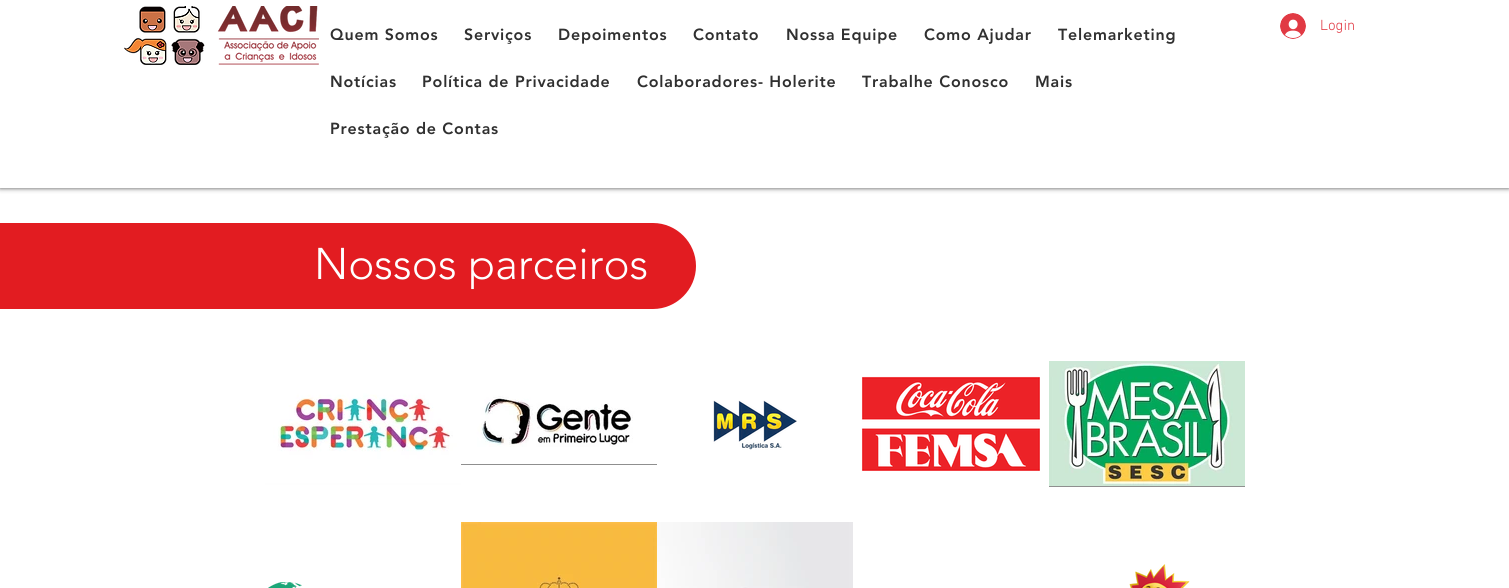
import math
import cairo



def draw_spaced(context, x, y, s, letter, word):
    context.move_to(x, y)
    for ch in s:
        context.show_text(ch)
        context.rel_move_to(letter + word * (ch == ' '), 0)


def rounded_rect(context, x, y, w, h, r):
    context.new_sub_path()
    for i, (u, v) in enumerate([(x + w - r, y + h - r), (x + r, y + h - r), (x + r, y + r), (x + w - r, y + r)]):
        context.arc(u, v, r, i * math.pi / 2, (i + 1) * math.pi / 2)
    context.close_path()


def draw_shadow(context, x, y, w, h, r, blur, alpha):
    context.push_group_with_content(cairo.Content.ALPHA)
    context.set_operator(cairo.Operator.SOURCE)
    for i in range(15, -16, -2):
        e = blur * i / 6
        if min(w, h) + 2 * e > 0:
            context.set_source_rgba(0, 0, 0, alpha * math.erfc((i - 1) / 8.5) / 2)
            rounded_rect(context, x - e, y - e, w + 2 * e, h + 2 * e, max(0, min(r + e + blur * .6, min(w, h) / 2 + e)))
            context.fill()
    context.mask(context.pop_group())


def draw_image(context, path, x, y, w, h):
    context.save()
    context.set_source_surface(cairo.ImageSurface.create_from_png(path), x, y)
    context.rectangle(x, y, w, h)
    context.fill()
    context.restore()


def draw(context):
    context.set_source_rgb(1, 1, 1)
    context.paint()
    context.set_source_rgb(0, 0, 0)
    draw_shadow(context, 0, 0, 1509, 188, 0, 2.5, 0.7)
    context.set_source_rgb(1, 1, 1)
    context.rectangle(0, 0, 1509, 188)
    context.fill()
    draw_image(context, "images/1.png", 124, 6, 195, 59)
    draw_image(context, "images/2.png", 1280, 13, 26, 26)
    context.set_source_rgb(226 / 255, 28 / 255, 33 / 255)
    context.new_path()
    context.move_to(0, 223)
    context.line_to(653, 223)
    context.curve_to(676.5, 223, 696, 242.5, 696, 266)
    context.curve_to(696, 289.5, 676.5, 309, 653, 309)
    context.line_to(0, 309)
    context.close_path()
    context.fill()
    draw_image(context, "images/3.png", 265, 363, 196, 122)
    context.set_source_rgb(143 / 255, 143 / 255, 143 / 255)
    context.rectangle(461, 464, 196, 1)
    context.fill()
    draw_image(context, "images/4.png", 461, 383, 196, 81)
    draw_image(context, "images/5.png", 713, 400, 84, 50)
    draw_image(context, "images/6.png", 861, 376, 179, 95)
    context.rectangle(1049, 486, 196, 1)
    context.fill()
    draw_image(context, "images/7.png", 1049, 361, 196, 125)
    draw_image(context, "images/8.png", 268, 582, 34, 6)
    draw_image(context, "images/9.png", 461, 522, 196, 66)
    draw_image(context, "images/10.png", 657, 522, 196, 66)
    draw_image(context, "images/11.png", 1129, 564, 61, 24)
    context.select_font_face("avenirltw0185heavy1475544 Black")
    context.set_font_size(16)
    context.set_source_rgb(48 / 255, 48 / 255, 48 / 255)
    draw_spaced(context, 330, 40, "Quem Somos", 0.8, 0)
    draw_spaced(context, 464, 40, "Serviços", 0.8, 0)
    draw_spaced(context, 558, 40, "Depoimentos", 0.8, 0)
    draw_spaced(context, 693, 40, "Contato", 0.8, 0)
    draw_spaced(context, 786, 40, "Nossa Equipe", 0.8, 0)
    draw_spaced(context, 924, 40, "Como Ajudar", 0.8, 0)
    draw_spaced(context, 1058, 40, "Telemarketing", 0.8, 0)
    draw_spaced(context, 330, 87, "Notícias", 0.8, 0)
    draw_spaced(context, 422, 87, "Política de Privacidade", 0.8, 0)
    draw_spaced(context, 637, 87, "Colaboradores- Holerite", 0.8, 0)
    draw_spaced(context, 862, 87, "Trabalhe Conosco", 0.8, 0)
    draw_spaced(context, 1035, 87, "Mais", 0.8, 0)
    draw_spaced(context, 330, 134, "Prestação de Contas", 0.8, 0)
    context.select_font_face("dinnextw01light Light")
    context.set_font_size(15)
    context.set_source_rgb(225 / 255, 58 / 255, 68 / 255)
    context.move_to(1320, 30)
    context.show_text("Login")
    context.select_font_face("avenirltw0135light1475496 Light")
    context.set_font_size(44)
    context.set_source_rgb(1, 1, 1)
    context.move_to(314, 279)
    context.show_text("Nossos parceiros")


surface = cairo.ImageSurface(cairo.Format.RGB24, 1509, 588)
context = cairo.Context(surface)
options = cairo.FontOptions()
options.set_hint_metrics(cairo.HintMetrics.OFF)
options.set_hint_style(cairo.HintStyle.NONE)
context.set_font_options(options)
context.set_miter_limit(4)
draw(context)
surface.write_to_png("out.png")
